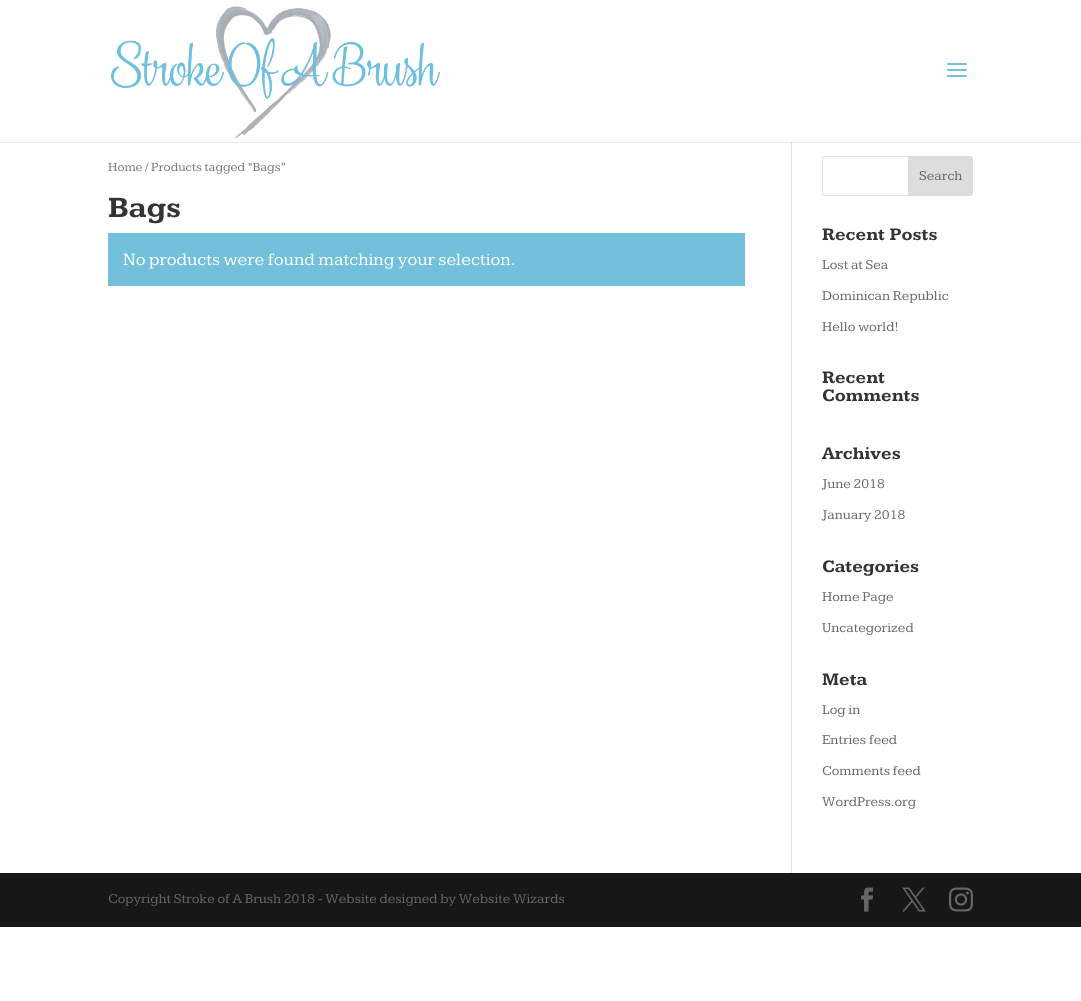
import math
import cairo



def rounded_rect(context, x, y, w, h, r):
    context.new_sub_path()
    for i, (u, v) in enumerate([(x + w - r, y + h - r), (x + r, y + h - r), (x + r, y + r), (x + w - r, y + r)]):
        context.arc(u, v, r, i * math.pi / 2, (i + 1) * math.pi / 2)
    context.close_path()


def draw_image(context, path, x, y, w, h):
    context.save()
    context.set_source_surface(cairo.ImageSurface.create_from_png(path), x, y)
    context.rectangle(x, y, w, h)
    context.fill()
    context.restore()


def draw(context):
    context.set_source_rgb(1, 1, 1)
    context.paint()
    context.set_source_rgb(230 / 255, 230 / 255, 230 / 255)
    context.rectangle(0, 142, 1081, 1)
    context.fill()
    draw_image(context, "images/1.png", 111, 6, 329, 133)
    draw_image(context, "images/2.png", 947, 63, 20, 14)
    context.set_source_rgb(226 / 255, 226 / 255, 226 / 255)
    context.rectangle(791, 143, 1, 730)
    context.fill()
    context.set_source_rgb(203 / 255, 203 / 255, 203 / 255)
    context.rectangle(791, 142, 1, 1)
    context.fill()
    context.set_source_rgb(114 / 255, 192 / 255, 220 / 255)
    context.rectangle(108, 233, 637, 53)
    context.fill()
    rounded_rect(context, 822.5, 156.5, 150, 39, 2.5)
    context.set_source_rgb(221 / 255, 221 / 255, 221 / 255)
    context.set_line_width(1)
    context.stroke()
    context.new_path()
    context.move_to(908.5, 156.5)
    context.line_to(970, 156.5)
    context.curve_to(971.5, 156.5, 972.5, 157.5, 972.5, 159)
    context.line_to(972.5, 193)
    context.curve_to(972.5, 194.5, 971.5, 195.5, 970, 195.5)
    context.line_to(908.5, 195.5)
    context.close_path()
    context.fill_preserve()
    context.stroke()
    context.set_source_rgb(23 / 255, 23 / 255, 23 / 255)
    context.rectangle(0, 873, 1081, 54)
    context.fill()
    draw_image(context, "images/3.png", 861, 887, 12, 25)
    draw_image(context, "images/4.png", 902, 887, 24, 25)
    draw_image(context, "images/5.png", 949, 887, 24, 25)
    context.select_font_face("Kameron")
    context.set_font_size(12.9)
    context.set_source_rgb(118 / 255, 118 / 255, 118 / 255)
    context.move_to(108, 171)
    context.show_text("Home / Products tagged “Bags”")
    context.select_font_face("Kameron", cairo.FontSlant.NORMAL, cairo.FontWeight.BOLD)
    context.set_font_size(30)
    context.set_source_rgb(51 / 255, 51 / 255, 51 / 255)
    context.move_to(108, 217)
    context.show_text("Bags")
    context.select_font_face("Kameron")
    context.set_font_size(18)
    context.set_source_rgb(1, 1, 1)
    context.move_to(123, 265)
    context.show_text("No products were found matching your selection.")
    context.set_font_size(14)
    context.set_source_rgb(102 / 255, 102 / 255, 102 / 255)
    context.move_to(919, 180)
    context.show_text("Search")
    context.select_font_face("Kameron", cairo.FontSlant.NORMAL, cairo.FontWeight.BOLD)
    context.set_font_size(18)
    context.set_source_rgb(51 / 255, 51 / 255, 51 / 255)
    context.move_to(822, 240)
    context.show_text("Recent Posts")
    context.select_font_face("Kameron")
    context.set_font_size(14)
    context.set_source_rgb(102 / 255, 102 / 255, 102 / 255)
    context.move_to(822, 269)
    context.show_text("Lost at Sea")
    context.move_to(822, 300)
    context.show_text("Dominican Republic")
    context.move_to(822, 331)
    context.show_text("Hello world!")
    context.select_font_face("Kameron", cairo.FontSlant.NORMAL, cairo.FontWeight.BOLD)
    context.set_font_size(18)
    context.set_source_rgb(51 / 255, 51 / 255, 51 / 255)
    context.move_to(822, 383)
    context.show_text("Recent")
    context.move_to(822, 401)
    context.show_text("Comments")
    context.move_to(822, 459)
    context.show_text("Archives")
    context.select_font_face("Kameron")
    context.set_font_size(14)
    context.set_source_rgb(102 / 255, 102 / 255, 102 / 255)
    context.move_to(822, 488)
    context.show_text("June 2018")
    context.move_to(822, 519)
    context.show_text("January 2018")
    context.select_font_face("Kameron", cairo.FontSlant.NORMAL, cairo.FontWeight.BOLD)
    context.set_font_size(18)
    context.set_source_rgb(51 / 255, 51 / 255, 51 / 255)
    context.move_to(822, 572)
    context.show_text("Categories")
    context.select_font_face("Kameron")
    context.set_font_size(14)
    context.set_source_rgb(102 / 255, 102 / 255, 102 / 255)
    context.move_to(822, 601)
    context.show_text("Home Page")
    context.move_to(822, 632)
    context.show_text("Uncategorized")
    context.select_font_face("Kameron", cairo.FontSlant.NORMAL, cairo.FontWeight.BOLD)
    context.set_font_size(18)
    context.set_source_rgb(51 / 255, 51 / 255, 51 / 255)
    context.move_to(822, 685)
    context.show_text("Meta")
    context.select_font_face("Kameron")
    context.set_font_size(14)
    context.set_source_rgb(102 / 255, 102 / 255, 102 / 255)
    context.move_to(822, 714)
    context.show_text("Log in")
    context.move_to(822, 744)
    context.show_text("Entries feed")
    context.move_to(822, 775)
    context.show_text("Comments feed")
    context.move_to(822, 806)
    context.show_text("WordPress.org")
    context.move_to(108, 903)
    context.show_text("Copyright Stroke of A Brush 2018 - Website designed by Website Wizards")


surface = cairo.ImageSurface(cairo.Format.RGB24, 1081, 1001)
context = cairo.Context(surface)
options = cairo.FontOptions()
options.set_hint_metrics(cairo.HintMetrics.OFF)
options.set_hint_style(cairo.HintStyle.NONE)
context.set_font_options(options)
context.set_miter_limit(4)
draw(context)
surface.write_to_png("out.png")
